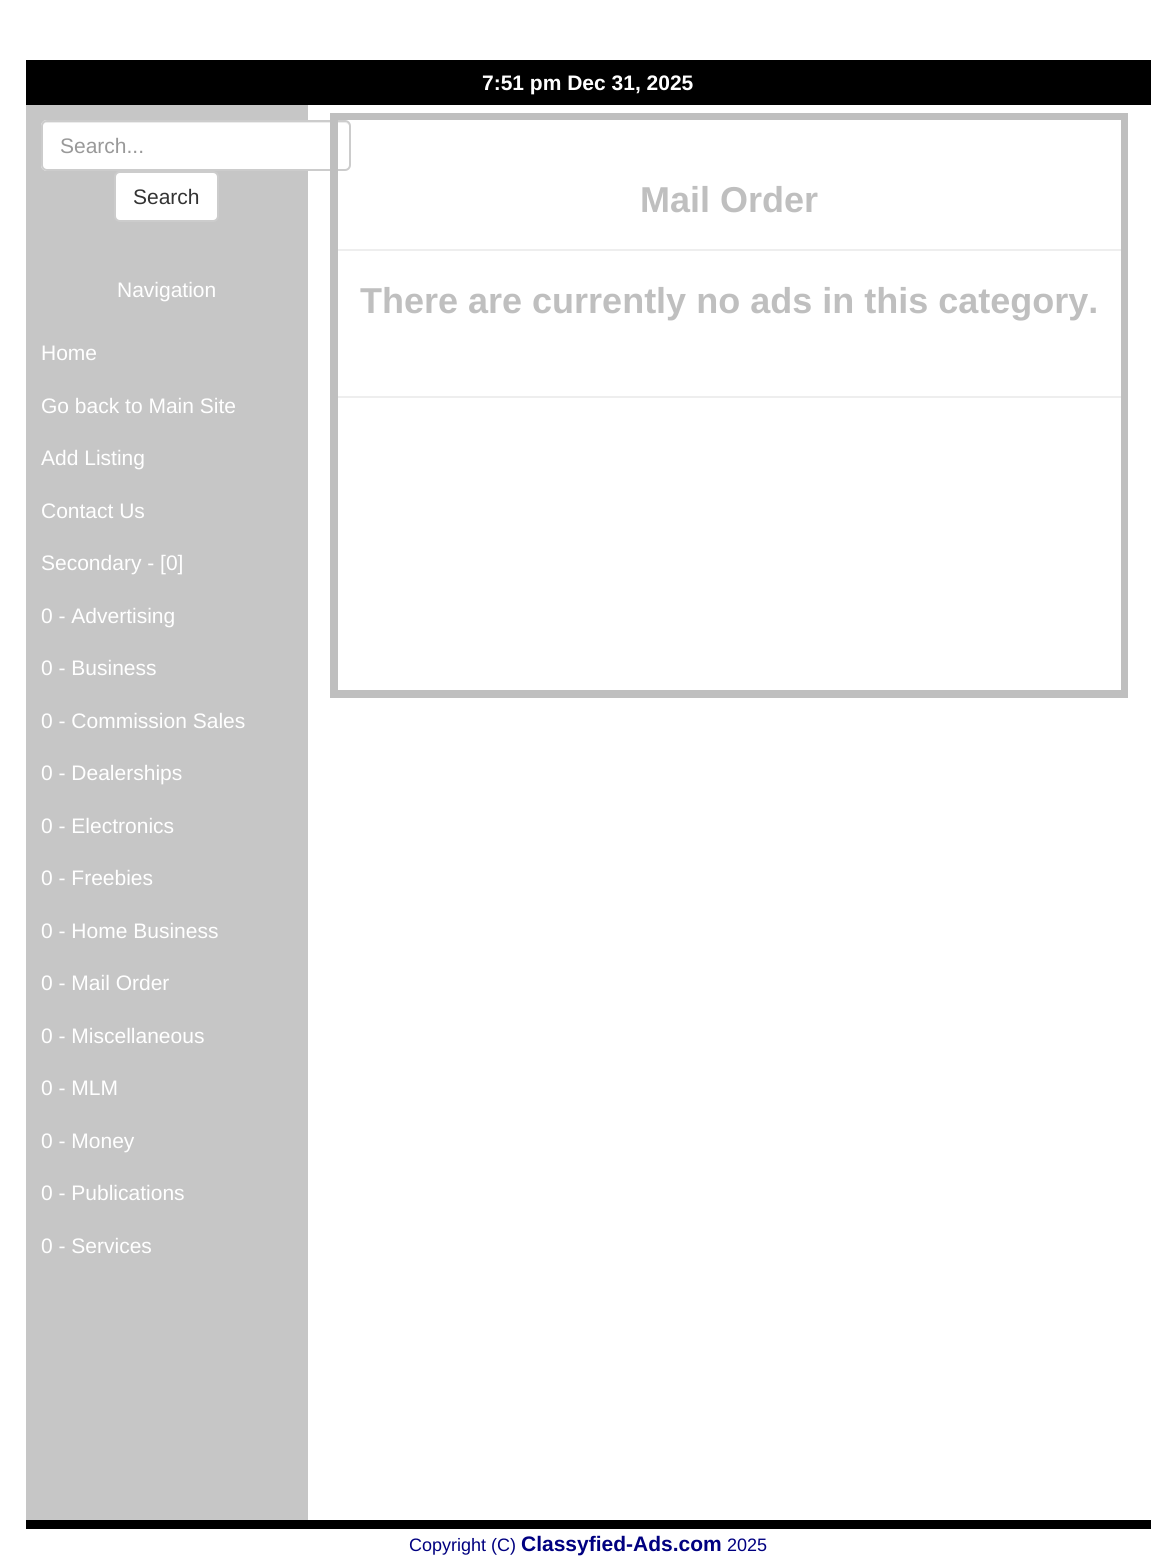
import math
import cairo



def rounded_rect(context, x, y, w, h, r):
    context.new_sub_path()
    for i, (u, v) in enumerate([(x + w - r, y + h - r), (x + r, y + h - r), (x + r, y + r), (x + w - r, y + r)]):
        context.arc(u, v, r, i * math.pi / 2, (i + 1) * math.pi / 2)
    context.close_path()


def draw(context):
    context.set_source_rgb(1, 1, 1)
    context.paint()
    context.set_source_rgb(0, 0, 0)
    context.rectangle(26, 60, 1125, 45)
    context.fill()
    context.set_source_rgb(198 / 255, 198 / 255, 198 / 255)
    context.rectangle(26, 105, 282, 1415)
    context.fill()
    context.set_source_rgb(1, 1, 1)
    rounded_rect(context, 41, 120, 310, 51, 6)
    context.fill()
    context.set_source_rgb(236 / 255, 236 / 255, 236 / 255)
    context.new_path()
    context.move_to(46, 123)
    context.line_to(345, 123)
    context.curve_to(347, 123, 350, 125, 350, 128)
    context.curve_to(350, 125, 348, 122, 345, 122)
    context.line_to(47, 122)
    context.curve_to(44, 122, 42, 125, 42, 128)
    context.curve_to(42, 125, 44, 123, 46, 123)
    context.close_path()
    context.fill()
    rounded_rect(context, 42, 121, 308, 49, 5)
    context.set_source_rgb(204 / 255, 204 / 255, 204 / 255)
    context.stroke()
    context.set_source_rgb(1, 1, 1)
    rounded_rect(context, 115, 172, 103, 49, 5)
    context.fill_preserve()
    context.set_source_rgb(204 / 255, 204 / 255, 204 / 255)
    context.stroke()
    context.set_source_rgb(191 / 255, 191 / 255, 191 / 255)
    context.rectangle(330, 113, 798, 7)
    context.fill()
    context.rectangle(1121, 113, 7, 585)
    context.fill()
    context.rectangle(330, 690, 798, 8)
    context.fill()
    context.rectangle(330, 113, 8, 585)
    context.fill()
    context.set_source_rgb(238 / 255, 238 / 255, 238 / 255)
    context.rectangle(338, 249, 783, 2)
    context.fill()
    context.rectangle(338, 396, 783, 2)
    context.fill()
    context.set_source_rgb(0, 0, 0)
    context.rectangle(26, 1520, 1125, 9)
    context.fill()
    context.select_font_face("Liberation Sans", cairo.FontSlant.NORMAL, cairo.FontWeight.BOLD)
    context.set_font_size(21)
    context.set_source_rgb(1, 1, 1)
    context.move_to(482, 90)
    context.show_text("7:51 pm Dec 31, 2025")
    context.select_font_face("Liberation Sans")
    context.set_source_rgb(153 / 255, 153 / 255, 153 / 255)
    context.move_to(60, 153)
    context.show_text("Search...")
    context.set_source_rgb(51 / 255, 51 / 255, 51 / 255)
    context.move_to(133, 204)
    context.show_text("Search")
    context.set_source_rgb(1, 1, 1)
    context.move_to(117, 297)
    context.show_text("Navigation")
    context.move_to(41, 360)
    context.show_text("Home")
    context.move_to(41, 413)
    context.show_text("Go back to Main Site")
    context.move_to(41, 465)
    context.show_text("Add Listing")
    context.move_to(41, 518)
    context.show_text("Contact Us")
    context.move_to(41, 570)
    context.show_text("Secondary - [0]")
    context.move_to(41, 623)
    context.show_text("0 - Advertising")
    context.move_to(41, 675)
    context.show_text("0 - Business")
    context.move_to(41, 728)
    context.show_text("0 - Commission Sales")
    context.move_to(41, 780)
    context.show_text("0 - Dealerships")
    context.move_to(41, 833)
    context.show_text("0 - Electronics")
    context.move_to(41, 885)
    context.show_text("0 - Freebies")
    context.move_to(41, 938)
    context.show_text("0 - Home Business")
    context.move_to(41, 990)
    context.show_text("0 - Mail Order")
    context.move_to(41, 1043)
    context.show_text("0 - Miscellaneous")
    context.move_to(41, 1095)
    context.show_text("0 - MLM")
    context.move_to(41, 1148)
    context.show_text("0 - Money")
    context.move_to(41, 1200)
    context.show_text("0 - Publications")
    context.move_to(41, 1253)
    context.show_text("0 - Services")
    context.select_font_face("Liberation Sans", cairo.FontSlant.NORMAL, cairo.FontWeight.BOLD)
    context.set_font_size(36)
    context.set_source_rgb(191 / 255, 191 / 255, 191 / 255)
    context.move_to(640, 212)
    context.show_text("Mail Order")
    context.move_to(360, 313)
    context.show_text("There are currently no ads in this category.")
    context.select_font_face("Liberation Sans")
    context.set_font_size(18)
    context.set_source_rgb(0, 0, 128 / 255)
    context.move_to(409, 1551)
    context.show_text("Copyright (C)")
    context.select_font_face("Liberation Sans", cairo.FontSlant.NORMAL, cairo.FontWeight.BOLD)
    context.set_font_size(21)
    context.move_to(521, 1551)
    context.show_text("Classyfied-Ads.com")
    context.select_font_face("Liberation Sans")
    context.set_font_size(18)
    context.move_to(727, 1551)
    context.show_text("2025")


surface = cairo.ImageSurface(cairo.Format.RGB24, 1176, 1560)
context = cairo.Context(surface)
options = cairo.FontOptions()
options.set_hint_metrics(cairo.HintMetrics.OFF)
options.set_hint_style(cairo.HintStyle.NONE)
context.set_font_options(options)
context.set_miter_limit(4)
draw(context)
surface.write_to_png("out.png")
